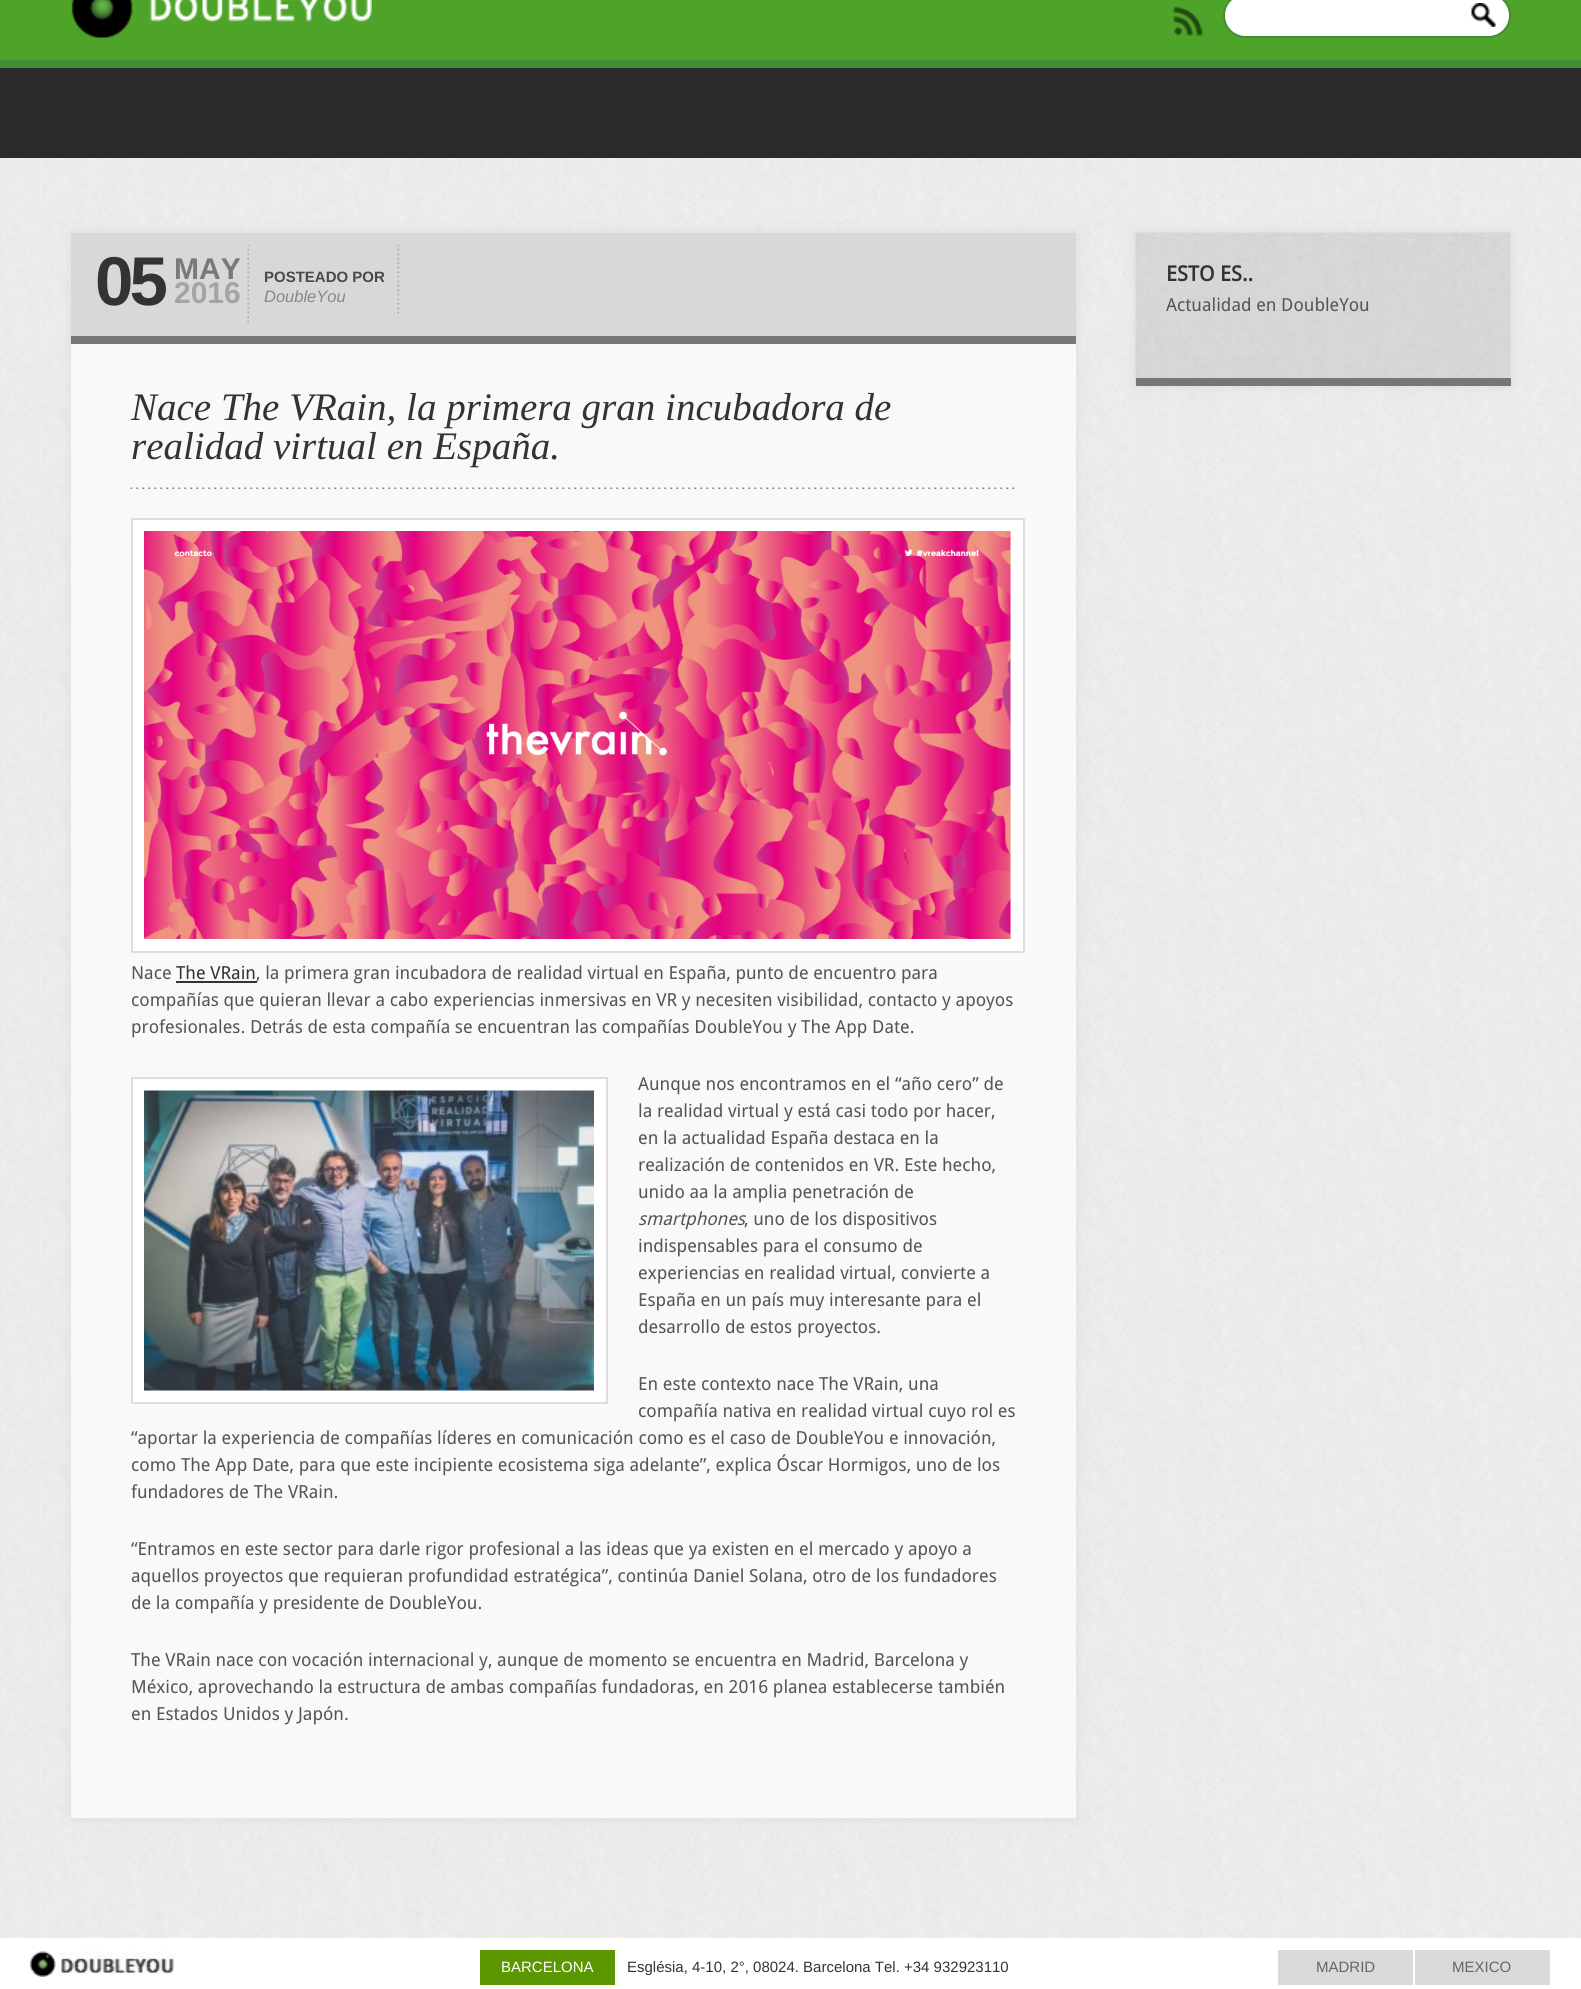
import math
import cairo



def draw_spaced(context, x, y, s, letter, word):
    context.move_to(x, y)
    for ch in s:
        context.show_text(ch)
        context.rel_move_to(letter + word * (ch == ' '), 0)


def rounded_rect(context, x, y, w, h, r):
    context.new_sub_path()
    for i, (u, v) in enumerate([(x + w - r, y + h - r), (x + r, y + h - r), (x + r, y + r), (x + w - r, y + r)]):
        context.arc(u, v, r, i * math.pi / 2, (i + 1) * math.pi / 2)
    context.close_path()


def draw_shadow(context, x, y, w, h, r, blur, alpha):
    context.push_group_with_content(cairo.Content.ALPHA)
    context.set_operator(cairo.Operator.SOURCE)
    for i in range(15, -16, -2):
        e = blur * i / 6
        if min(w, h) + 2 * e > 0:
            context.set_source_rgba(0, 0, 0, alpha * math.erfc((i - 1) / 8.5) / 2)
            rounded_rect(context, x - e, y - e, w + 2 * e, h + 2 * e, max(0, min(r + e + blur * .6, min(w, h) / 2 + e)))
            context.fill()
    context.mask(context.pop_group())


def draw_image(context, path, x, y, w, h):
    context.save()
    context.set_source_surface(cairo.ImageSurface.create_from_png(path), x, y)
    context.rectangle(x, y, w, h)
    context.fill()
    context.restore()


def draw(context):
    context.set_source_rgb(1, 1, 1)
    context.paint()
    draw_image(context, "images/1.png", 0, 158, 1581, 1780)
    context.set_source_rgb(78 / 255, 164 / 255, 40 / 255)
    context.rectangle(0, 0, 1581, 60)
    context.fill()
    context.set_source_rgb(67 / 255, 142 / 255, 53 / 255)
    context.rectangle(0, 60, 1581, 8)
    context.fill()
    draw_image(context, "images/2.png", 71, 0, 301, 38)
    draw_image(context, "images/3.png", 1173, 6, 30, 30)
    context.set_source_rgb(1, 1, 1)
    rounded_rect(context, 1224, -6, 286, 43, 21.5)
    context.fill_preserve()
    context.set_source_rgb(67 / 255, 142 / 255, 53 / 255)
    context.stroke()
    draw_image(context, "images/4.png", 1471, 3, 25, 24)
    context.set_source_rgb(42 / 255, 42 / 255, 42 / 255)
    context.rectangle(0, 68, 1581, 90)
    context.fill()
    context.set_source_rgb(221 / 255, 221 / 255, 221 / 255)
    draw_shadow(context, 71, 233, 1005, 1585, 0, 6, 1)
    context.set_source_rgb(249 / 255, 249 / 255, 249 / 255)
    context.rectangle(71, 344, 1005, 1474)
    context.fill()
    context.set_source_rgb(216 / 255, 216 / 255, 216 / 255)
    context.rectangle(71, 233, 1005, 103)
    context.fill()
    context.set_source_rgb(119 / 255, 119 / 255, 119 / 255)
    context.rectangle(71, 336, 1005, 8)
    context.fill()
    draw_image(context, "images/5.png", 247, 244, 3, 79)
    draw_image(context, "images/6.png", 397, 244, 3, 73)
    draw_image(context, "images/7.png", 130, 487, 885, 2)
    context.set_source_rgb(1, 1, 1)
    context.rectangle(132, 519, 892, 433)
    context.fill_preserve()
    context.set_source_rgb(221 / 255, 221 / 255, 221 / 255)
    context.stroke()
    draw_image(context, "images/8.png", 144, 531, 867, 408)
    context.set_source_rgb(51 / 255, 51 / 255, 51 / 255)
    context.rectangle(176, 981, 81, 2)
    context.fill()
    context.set_source_rgb(1, 1, 1)
    context.rectangle(132, 1078, 475, 325)
    context.fill_preserve()
    context.set_source_rgb(221 / 255, 221 / 255, 221 / 255)
    context.stroke()
    draw_image(context, "images/9.png", 144, 1090, 450, 301)
    context.set_source_rgb(221 / 255, 221 / 255, 221 / 255)
    draw_shadow(context, 1136, 233, 375, 153, 0, 6, 1)
    draw_image(context, "images/10.png", 1135, 232, 376, 154)
    context.set_source_rgb(119 / 255, 119 / 255, 119 / 255)
    context.rectangle(1136, 378, 375, 8)
    context.fill()
    draw_image(context, "images/11.png", 30, 1951, 144, 26)
    context.set_source_rgb(91 / 255, 151 / 255, 0)
    context.rectangle(480, 1950, 135, 35)
    context.fill()
    context.set_source_rgb(217 / 255, 217 / 255, 217 / 255)
    context.rectangle(1278, 1950, 135, 35)
    context.fill()
    context.rectangle(1415, 1950, 135, 35)
    context.fill()
    context.select_font_face("Liberation Sans", cairo.FontSlant.NORMAL, cairo.FontWeight.BOLD)
    context.set_font_size(69)
    context.set_source_rgb(51 / 255, 51 / 255, 51 / 255)
    draw_spaced(context, 95, 305, "05", -4, 0)
    context.set_font_size(30)
    context.set_source_rgb(121 / 255, 121 / 255, 121 / 255)
    context.move_to(174, 279)
    context.show_text("MAY")
    context.set_source_rgb(164 / 255, 164 / 255, 164 / 255)
    context.move_to(174, 303)
    context.show_text("2016")
    context.set_font_size(15)
    context.set_source_rgb(73 / 255, 73 / 255, 73 / 255)
    context.move_to(264, 282)
    context.show_text("POSTEADO POR")
    context.select_font_face("Liberation Sans", cairo.FontSlant.ITALIC)
    context.set_font_size(16.5)
    context.set_source_rgb(136 / 255, 136 / 255, 136 / 255)
    context.move_to(264, 302)
    context.show_text("DoubleYou")
    context.select_font_face("Liberation Serif", cairo.FontSlant.ITALIC)
    context.set_font_size(39)
    context.set_source_rgb(51 / 255, 51 / 255, 51 / 255)
    context.move_to(131, 420)
    context.show_text("Nace The VRain, la primera gran incubadora de")
    context.move_to(131, 459)
    context.show_text("realidad virtual en España.")
    context.select_font_face("Droid Sans")
    context.set_font_size(18)
    context.set_source_rgb(85 / 255, 85 / 255, 85 / 255)
    context.move_to(131, 979)
    context.show_text("Nace")
    context.set_source_rgb(51 / 255, 51 / 255, 51 / 255)
    context.move_to(176, 979)
    context.show_text("The VRain")
    context.set_source_rgb(85 / 255, 85 / 255, 85 / 255)
    context.move_to(256, 979)
    context.show_text(", la primera gran incubadora de realidad virtual en España, punto de encuentro para")
    context.move_to(131, 1006)
    context.show_text("compañías que quieran llevar a cabo experiencias inmersivas en VR y necesiten visibilidad, contacto y apoyos")
    context.move_to(131, 1033)
    context.show_text("profesionales. Detrás de esta compañía se encuentran las compañías DoubleYou y The App Date.")
    context.move_to(638, 1090)
    context.show_text("Aunque nos encontramos en el “año cero” de")
    context.move_to(638, 1117)
    context.show_text("la realidad virtual y está casi todo por hacer,")
    context.move_to(638, 1144)
    context.show_text("en la actualidad España destaca en la")
    context.move_to(638, 1171)
    context.show_text("realización de contenidos en VR. Este hecho,")
    context.move_to(638, 1198)
    context.show_text("unido aa la amplia penetración de")
    context.select_font_face("Droid Sans", cairo.FontSlant.ITALIC)
    context.move_to(638, 1225)
    context.show_text("smartphones")
    context.select_font_face("Droid Sans")
    context.move_to(744, 1225)
    context.show_text(", uno de los dispositivos")
    context.move_to(638, 1252)
    context.show_text("indispensables para el consumo de")
    context.move_to(638, 1279)
    context.show_text("experiencias en realidad virtual, convierte a")
    context.move_to(638, 1306)
    context.show_text("España en un país muy interesante para el")
    context.move_to(638, 1333)
    context.show_text("desarrollo de estos proyectos.")
    context.move_to(638, 1390)
    context.show_text("En este contexto nace The VRain, una")
    context.move_to(638, 1417)
    context.show_text("compañía nativa en realidad virtual cuyo rol es")
    context.move_to(131, 1444)
    context.show_text("“aportar la experiencia de compañías líderes en comunicación como es el caso de DoubleYou e innovación,")
    context.move_to(131, 1471)
    context.show_text("como The App Date, para que este incipiente ecosistema siga adelante”, explica Óscar Hormigos, uno de los")
    context.move_to(131, 1498)
    context.show_text("fundadores de The VRain.")
    context.move_to(131, 1555)
    context.show_text("“Entramos en este sector para darle rigor profesional a las ideas que ya existen en el mercado y apoyo a")
    context.move_to(131, 1582)
    context.show_text("aquellos proyectos que requieran profundidad estratégica”, continúa Daniel Solana, otro de los fundadores")
    context.move_to(131, 1609)
    context.show_text("de la compañía y presidente de DoubleYou.")
    context.move_to(131, 1666)
    context.show_text("The VRain nace con vocación internacional y, aunque de momento se encuentra en Madrid, Barcelona y")
    context.move_to(131, 1693)
    context.show_text("México, aprovechando la estructura de ambas compañías fundadoras, en 2016 planea establecerse también")
    context.move_to(131, 1720)
    context.show_text("en Estados Unidos y Japón.")
    context.select_font_face("Droid Sans", cairo.FontSlant.NORMAL, cairo.FontWeight.BOLD)
    context.set_font_size(21)
    context.set_source_rgb(51 / 255, 51 / 255, 51 / 255)
    context.move_to(1166, 281)
    context.show_text("ESTO ES..")
    context.select_font_face("Droid Sans")
    context.set_font_size(18)
    context.set_source_rgb(85 / 255, 85 / 255, 85 / 255)
    context.move_to(1166, 311)
    context.show_text("Actualidad en DoubleYou")
    context.select_font_face("Liberation Sans")
    context.set_font_size(15)
    context.set_source_rgb(1, 1, 1)
    context.move_to(501, 1972)
    context.show_text("BARCELONA")
    context.set_source_rgb(51 / 255, 51 / 255, 51 / 255)
    context.move_to(627, 1972)
    context.show_text("Església, 4-10, 2°, 08024. Barcelona Tel. +34 932923110")
    context.set_source_rgb(102 / 255, 102 / 255, 102 / 255)
    context.move_to(1316, 1972)
    context.show_text("MADRID")
    context.move_to(1452, 1972)
    context.show_text("MEXICO")


surface = cairo.ImageSurface(cairo.Format.RGB24, 1581, 1989)
context = cairo.Context(surface)
options = cairo.FontOptions()
options.set_hint_metrics(cairo.HintMetrics.OFF)
options.set_hint_style(cairo.HintStyle.NONE)
context.set_font_options(options)
context.set_miter_limit(4)
draw(context)
surface.write_to_png("out.png")
